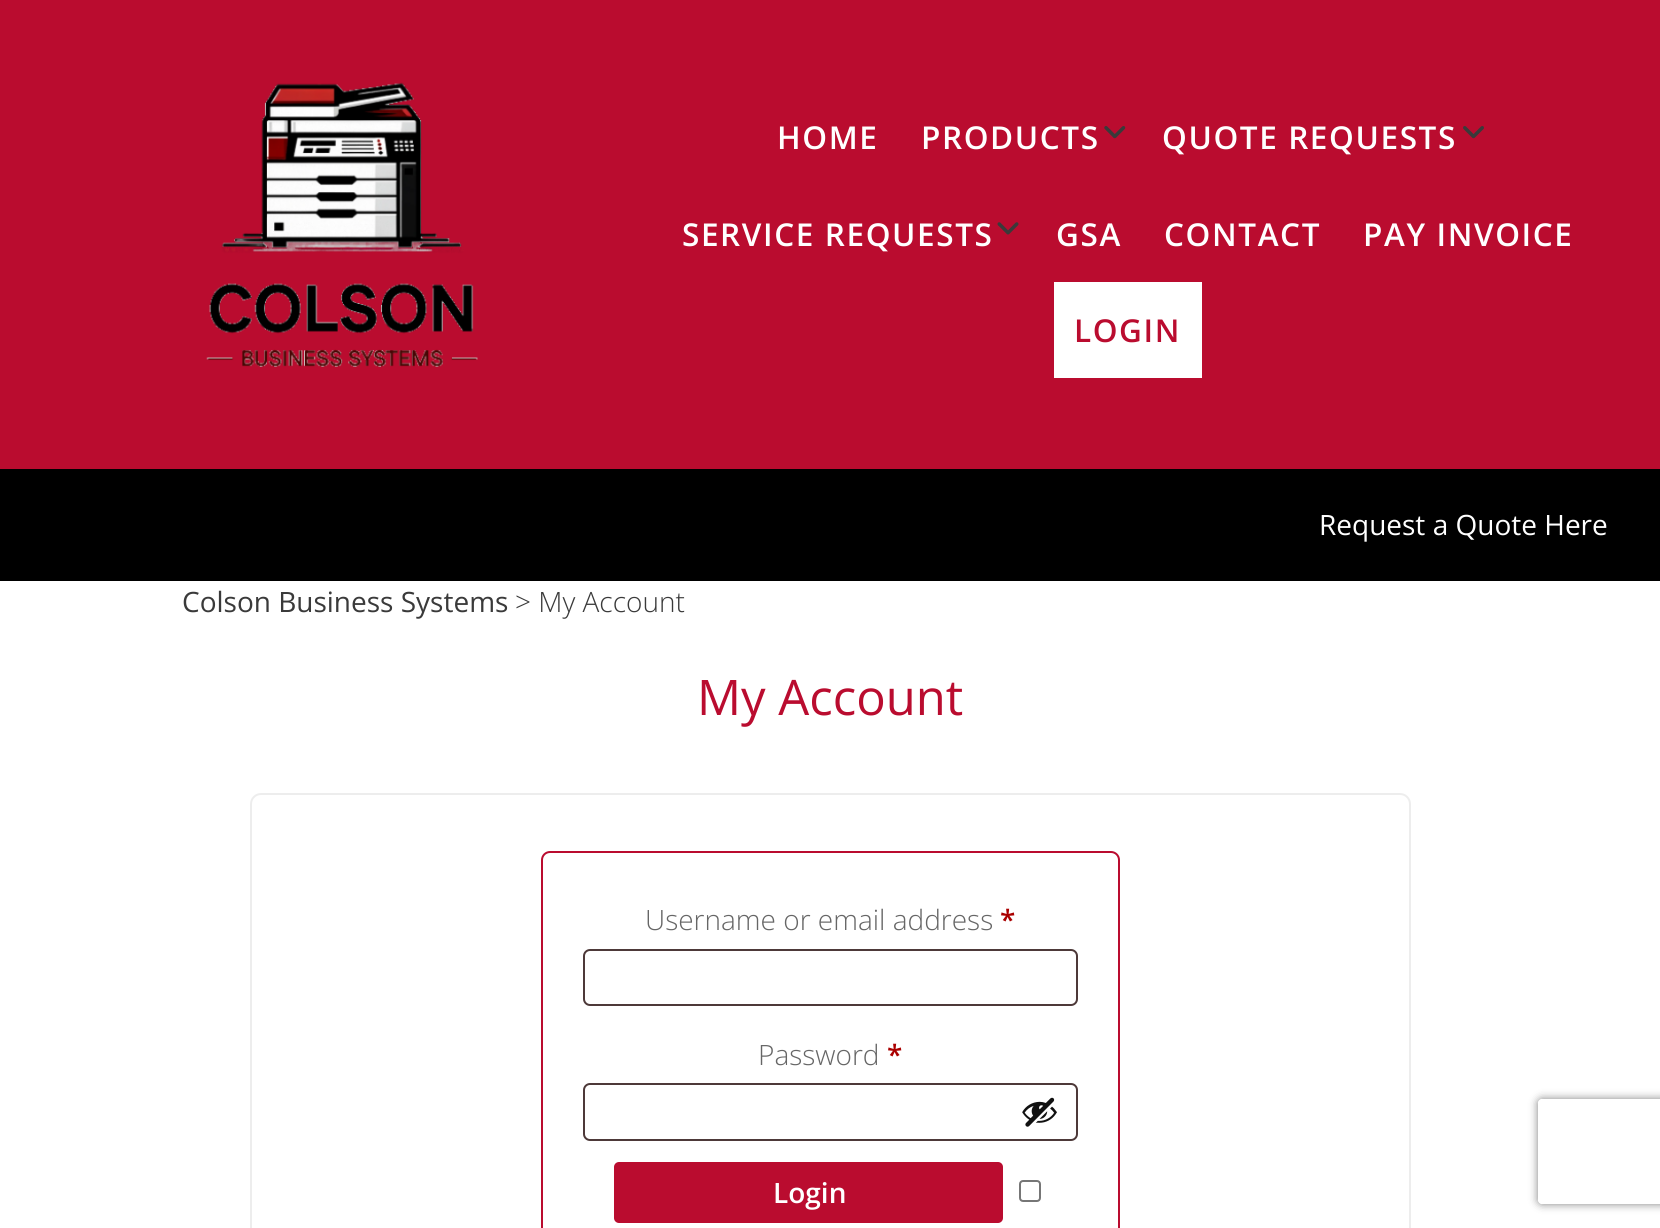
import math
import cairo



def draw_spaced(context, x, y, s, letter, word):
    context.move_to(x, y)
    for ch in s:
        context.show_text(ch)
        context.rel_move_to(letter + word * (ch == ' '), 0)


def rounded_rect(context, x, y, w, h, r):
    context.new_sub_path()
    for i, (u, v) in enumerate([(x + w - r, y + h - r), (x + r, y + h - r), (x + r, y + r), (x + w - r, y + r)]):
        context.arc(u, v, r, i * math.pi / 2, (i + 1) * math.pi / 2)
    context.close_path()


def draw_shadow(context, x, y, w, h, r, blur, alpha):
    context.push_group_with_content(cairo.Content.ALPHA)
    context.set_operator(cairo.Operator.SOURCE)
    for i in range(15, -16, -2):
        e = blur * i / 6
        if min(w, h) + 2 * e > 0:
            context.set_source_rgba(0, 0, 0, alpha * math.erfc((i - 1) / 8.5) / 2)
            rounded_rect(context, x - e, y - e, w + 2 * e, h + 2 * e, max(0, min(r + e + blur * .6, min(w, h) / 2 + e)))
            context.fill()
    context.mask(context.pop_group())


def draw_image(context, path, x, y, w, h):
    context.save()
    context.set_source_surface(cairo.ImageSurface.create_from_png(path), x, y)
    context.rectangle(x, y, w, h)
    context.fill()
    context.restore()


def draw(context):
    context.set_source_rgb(1, 1, 1)
    context.paint()
    context.set_source_rgb(186 / 255, 12 / 255, 47 / 255)
    context.rectangle(0, 0, 1660, 469)
    context.fill()
    draw_image(context, "images/1.png", 206, 82, 272, 285)
    draw_image(context, "images/2.png", 1104, 126, 22, 13)
    draw_image(context, "images/3.png", 1463, 126, 21, 13)
    draw_image(context, "images/4.png", 997, 222, 22, 13)
    context.set_source_rgb(1, 1, 1)
    context.rectangle(1054, 282, 148, 96)
    context.fill()
    context.set_source_rgb(0, 0, 0)
    context.rectangle(0, 469, 1660, 112)
    context.fill()
    rounded_rect(context, 251, 794, 1159, 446, 10)
    context.set_source_rgb(237 / 255, 237 / 255, 237 / 255)
    context.stroke()
    rounded_rect(context, 542, 852, 577, 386, 8)
    context.set_source_rgb(186 / 255, 12 / 255, 47 / 255)
    context.stroke()
    rounded_rect(context, 584, 950, 493, 55, 6)
    context.set_source_rgb(77 / 255, 57 / 255, 57 / 255)
    context.stroke()
    rounded_rect(context, 584, 1084, 493, 56, 6)
    context.stroke()
    draw_image(context, "images/5.png", 1022, 1097, 35, 30)
    context.set_source_rgb(186 / 255, 12 / 255, 47 / 255)
    rounded_rect(context, 614, 1162, 389, 61, 5)
    context.fill()
    rounded_rect(context, 1020, 1181, 20, 20, 3)
    context.set_source_rgb(118 / 255, 118 / 255, 118 / 255)
    context.stroke()
    context.save()
    context.set_fill_rule(cairo.FillRule.EVEN_ODD)
    context.new_path()
    context.move_to(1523, 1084)
    context.line_to(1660, 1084)
    context.line_to(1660, 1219)
    context.line_to(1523, 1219)
    context.close_path()
    context.move_to(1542, 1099)
    context.line_to(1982, 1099)
    context.curve_to(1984, 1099, 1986, 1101, 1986, 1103)
    context.line_to(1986, 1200)
    context.curve_to(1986, 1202, 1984, 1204, 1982, 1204)
    context.line_to(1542, 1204)
    context.curve_to(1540, 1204, 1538, 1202, 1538, 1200)
    context.line_to(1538, 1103)
    context.curve_to(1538, 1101, 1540, 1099, 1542, 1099)
    context.close_path()
    context.clip()
    context.set_source_rgb(128 / 255, 128 / 255, 128 / 255)
    draw_shadow(context, 1538, 1099, 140, 105, 4, 4.5, 1)
    context.restore()
    context.select_font_face("Open Sans SemiBold")
    context.set_font_size(31.5)
    context.set_source_rgb(1, 1, 1)
    draw_spaced(context, 777, 149, "HOME", 1.6, 0)
    draw_spaced(context, 921, 149, "PRODUCTS", 1.6, 0)
    draw_spaced(context, 1162, 149, "QUOTE REQUESTS", 1.6, 0)
    draw_spaced(context, 682, 246, "SERVICE REQUESTS", 1.6, 0)
    draw_spaced(context, 1056, 246, "GSA", 1.6, 0)
    draw_spaced(context, 1164, 246, "CONTACT", 1.6, 0)
    draw_spaced(context, 1363, 246, "PAY INVOICE", 1.6, 0)
    context.set_source_rgb(186 / 255, 12 / 255, 47 / 255)
    draw_spaced(context, 1074, 342, "LOGIN", 1.6, 0)
    context.select_font_face("Open Sans")
    context.set_font_size(28)
    context.set_source_rgb(1, 1, 1)
    context.move_to(1319, 535)
    context.show_text("Request a Quote Here")
    context.set_source_rgb(58 / 255, 58 / 255, 58 / 255)
    context.move_to(182, 612)
    context.show_text("Colson Business Systems")
    context.select_font_face("Open Sans Light")
    context.move_to(515, 612)
    context.show_text("> My Account")
    context.select_font_face("Open Sans")
    context.set_font_size(49)
    context.set_source_rgb(186 / 255, 12 / 255, 47 / 255)
    context.move_to(697, 715)
    context.show_text("My Account")
    context.select_font_face("Open Sans Light")
    context.set_font_size(28)
    context.set_source_rgb(102 / 255, 102 / 255, 102 / 255)
    context.move_to(645, 930)
    context.show_text("Username or email address")
    context.select_font_face("Open Sans SemiBold")
    context.set_source_rgb(170 / 255, 0, 0)
    context.move_to(1000, 930)
    context.show_text("*")
    context.select_font_face("Open Sans Light")
    context.set_source_rgb(102 / 255, 102 / 255, 102 / 255)
    context.move_to(758, 1065)
    context.show_text("Password")
    context.select_font_face("Open Sans SemiBold")
    context.set_source_rgb(170 / 255, 0, 0)
    context.move_to(887, 1065)
    context.show_text("*")
    context.set_source_rgb(1, 1, 1)
    context.move_to(773, 1203)
    context.show_text("Login")


surface = cairo.ImageSurface(cairo.Format.RGB24, 1660, 1228)
context = cairo.Context(surface)
options = cairo.FontOptions()
options.set_hint_metrics(cairo.HintMetrics.OFF)
options.set_hint_style(cairo.HintStyle.NONE)
context.set_font_options(options)
context.set_miter_limit(4)
draw(context)
surface.write_to_png("out.png")
